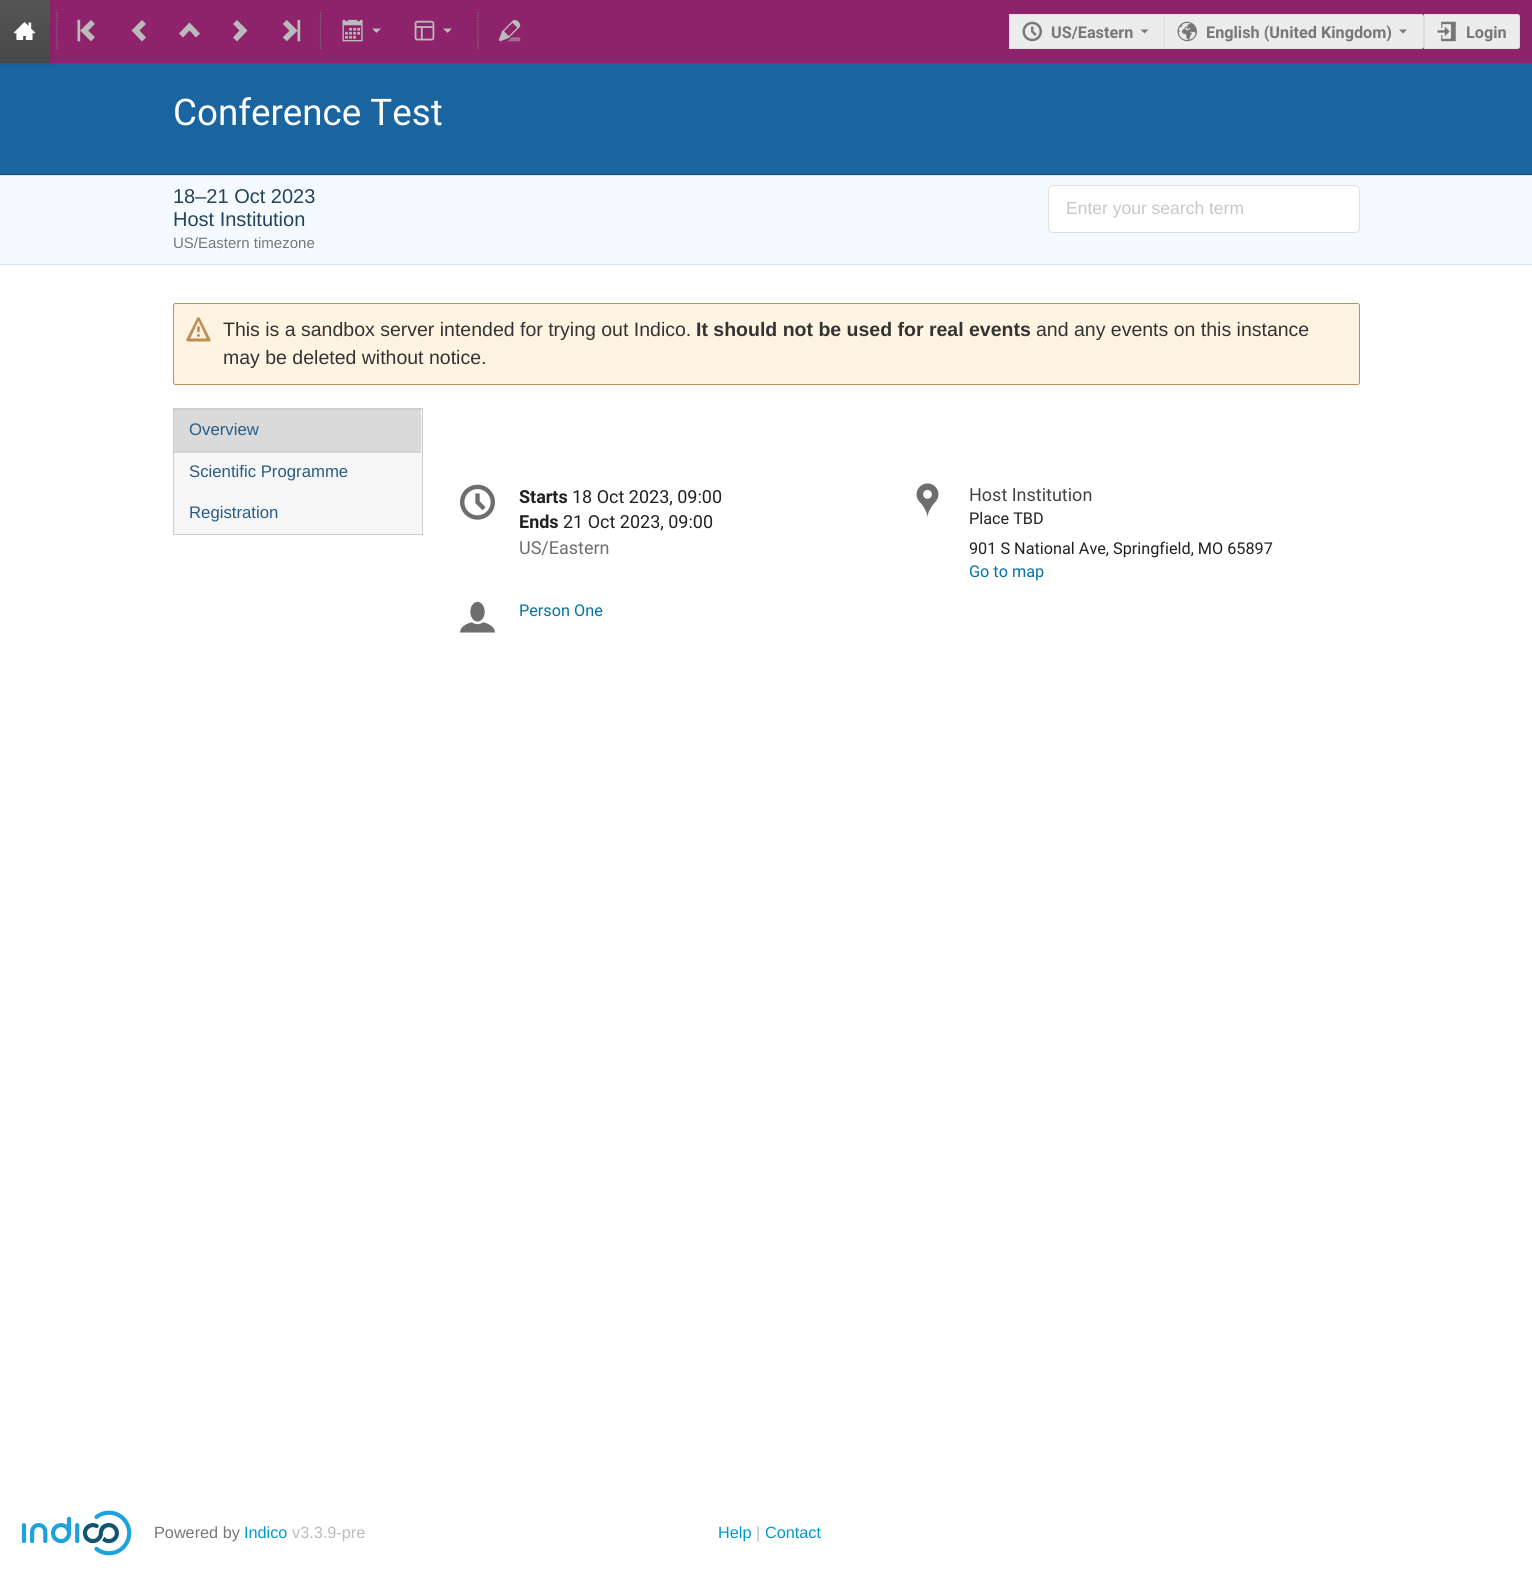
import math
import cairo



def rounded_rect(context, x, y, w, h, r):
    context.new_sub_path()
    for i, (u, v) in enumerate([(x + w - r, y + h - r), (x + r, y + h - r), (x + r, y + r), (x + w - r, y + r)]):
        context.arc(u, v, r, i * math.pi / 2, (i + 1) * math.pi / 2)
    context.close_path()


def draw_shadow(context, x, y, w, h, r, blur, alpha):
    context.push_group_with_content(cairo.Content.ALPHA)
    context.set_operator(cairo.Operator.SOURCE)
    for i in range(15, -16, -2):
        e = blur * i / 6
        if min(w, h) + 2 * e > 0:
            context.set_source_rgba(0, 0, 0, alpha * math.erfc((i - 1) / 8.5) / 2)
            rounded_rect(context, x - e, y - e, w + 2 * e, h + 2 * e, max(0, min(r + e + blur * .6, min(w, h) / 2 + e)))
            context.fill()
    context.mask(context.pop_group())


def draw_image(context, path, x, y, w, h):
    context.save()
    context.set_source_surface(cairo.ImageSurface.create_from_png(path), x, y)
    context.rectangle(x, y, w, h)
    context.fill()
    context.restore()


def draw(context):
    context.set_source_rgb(1, 1, 1)
    context.paint()
    context.set_source_rgb(142 / 255, 35 / 255, 107 / 255)
    context.rectangle(50, 0, 1482, 63)
    context.fill()
    context.set_source_rgb(26 / 255, 100 / 255, 160 / 255)
    context.rectangle(0, 63, 1532, 111)
    context.fill()
    context.set_source_rgb(20 / 255, 20 / 255, 20 / 255)
    draw_shadow(context, 1, 1, 50, 63, 0, 2.5, 0.1)
    gradient = cairo.LinearGradient(25, 0, 25, 63)
    gradient.add_color_stop_rgba(0, 85 / 255, 85 / 255, 85 / 255, 1)
    gradient.add_color_stop_rgba(1, 72 / 255, 72 / 255, 72 / 255, 1)
    context.set_source(gradient)
    context.rectangle(0, 0, 50, 63)
    context.fill()
    draw_image(context, "images/1.png", 13, 22, 23, 18)
    context.new_path()
    context.move_to(57, 12.5)
    context.line_to(57, 50)
    context.set_source_rgb(119 / 255, 119 / 255, 119 / 255)
    context.set_line_width(1.2)
    context.set_dash([1.25, 1.25])
    context.stroke()
    draw_image(context, "images/2.png", 77, 19, 18, 23)
    context.set_source_rgb(187 / 255, 187 / 255, 187 / 255)
    context.new_path()
    context.move_to(142, 41.5)
    context.line_to(146, 37.5)
    context.line_to(139.5, 30.5)
    context.line_to(146, 24)
    context.line_to(142, 20)
    context.line_to(131.5, 30.5)
    context.close_path()
    context.fill()
    context.new_path()
    context.move_to(179, 33.5)
    context.line_to(183, 37.5)
    context.line_to(189.5, 30.5)
    context.line_to(196, 37.5)
    context.line_to(200, 33.5)
    context.line_to(189.5, 22.5)
    context.close_path()
    context.fill()
    context.new_path()
    context.move_to(237, 20)
    context.line_to(233, 24)
    context.line_to(239.5, 30.5)
    context.line_to(233, 37.5)
    context.line_to(237, 41.5)
    context.line_to(247.5, 30.5)
    context.close_path()
    context.fill()
    draw_image(context, "images/3.png", 282, 19, 19, 23)
    context.new_path()
    context.move_to(320.5, 12.5)
    context.line_to(320.5, 50)
    context.set_source_rgb(119 / 255, 119 / 255, 119 / 255)
    context.stroke()
    draw_image(context, "images/4.png", 342, 19, 21, 23)
    context.set_source_rgb(187 / 255, 187 / 255, 187 / 255)
    context.new_path()
    context.move_to(372, 28.5)
    context.line_to(376.5, 33)
    context.line_to(381, 28.5)
    context.close_path()
    context.fill()
    draw_image(context, "images/5.png", 414, 20, 21, 21)
    context.new_path()
    context.move_to(443, 28.5)
    context.line_to(447.5, 33)
    context.line_to(452, 28.5)
    context.close_path()
    context.fill()
    context.new_path()
    context.move_to(478, 12.5)
    context.line_to(478, 50)
    context.set_source_rgb(119 / 255, 119 / 255, 119 / 255)
    context.stroke()
    draw_image(context, "images/6.png", 498, 19, 23, 23)
    context.set_source_rgb(236 / 255, 236 / 255, 236 / 255)
    context.rectangle(1010, 15, 154, 33)
    context.fill()
    context.set_source_rgb(223 / 255, 223 / 255, 223 / 255)
    context.rectangle(1009, 14, 155, 1)
    context.fill()
    context.rectangle(1009, 48, 155, 1)
    context.fill()
    context.rectangle(1009, 14, 1, 35)
    context.fill()
    draw_image(context, "images/7.png", 1022, 21, 20, 21)
    context.set_source_rgb(119 / 255, 119 / 255, 119 / 255)
    context.new_path()
    context.move_to(1140.5, 29.5)
    context.line_to(1144.5, 33.5)
    context.line_to(1148.5, 29.5)
    context.close_path()
    context.fill()
    context.set_source_rgb(236 / 255, 236 / 255, 236 / 255)
    context.new_path()
    context.move_to(1164.5, 14.5)
    context.line_to(1421.5, 14.5)
    context.curve_to(1422.5, 14.5, 1423.5, 15.5, 1423.5, 16.5)
    context.line_to(1423.5, 46.5)
    context.curve_to(1423.5, 47.5, 1422.5, 48.5, 1421.5, 48.5)
    context.line_to(1164.5, 48.5)
    context.close_path()
    context.fill_preserve()
    context.set_source_rgb(223 / 255, 223 / 255, 223 / 255)
    context.set_line_width(1)
    context.set_dash([])
    context.stroke()
    draw_image(context, "images/8.png", 1177, 21, 20, 21)
    context.set_source_rgb(119 / 255, 119 / 255, 119 / 255)
    context.new_path()
    context.move_to(1399, 29.5)
    context.line_to(1403, 33.5)
    context.line_to(1407, 29.5)
    context.close_path()
    context.fill()
    context.set_source_rgb(236 / 255, 236 / 255, 236 / 255)
    context.new_path()
    context.move_to(1424.5, 14.5)
    context.line_to(1517.5, 14.5)
    context.curve_to(1518.5, 14.5, 1519.5, 15.5, 1519.5, 16.5)
    context.line_to(1519.5, 46.5)
    context.curve_to(1519.5, 47.5, 1518.5, 48.5, 1517.5, 48.5)
    context.line_to(1424.5, 48.5)
    context.close_path()
    context.fill_preserve()
    context.set_source_rgb(223 / 255, 223 / 255, 223 / 255)
    context.stroke()
    draw_image(context, "images/9.png", 1437, 21, 19, 21)
    context.set_source_rgb(15 / 255, 76 / 255, 128 / 255)
    context.rectangle(0, 174, 1532, 1)
    context.fill()
    context.set_source_rgb(245 / 255, 250 / 255, 1)
    context.rectangle(0, 176, 1532, 88)
    context.fill()
    context.set_source_rgb(213 / 255, 228 / 255, 241 / 255)
    context.rectangle(0, 175, 1532, 1)
    context.fill()
    context.rectangle(0, 264, 1532, 1)
    context.fill()
    context.set_source_rgb(1, 1, 1)
    rounded_rect(context, 1048, 185, 312, 48, 5)
    context.fill()
    rounded_rect(context, 1048.5, 185.5, 311, 47, 4.5)
    context.set_source_rgba(34 / 255, 36 / 255, 38 / 255, 0.15)
    context.stroke()
    context.set_source_rgb(1, 243 / 255, 226 / 255)
    rounded_rect(context, 173.5, 303.5, 1186, 81, 2)
    context.fill_preserve()
    context.set_source_rgb(190 / 255, 144 / 255, 86 / 255)
    context.stroke()
    draw_image(context, "images/10.png", 186, 317, 25, 25)
    context.set_source_rgb(246 / 255, 246 / 255, 246 / 255)
    context.rectangle(173.5, 408.5, 249, 126)
    context.fill_preserve()
    context.set_source_rgb(204 / 255, 204 / 255, 204 / 255)
    context.stroke()
    context.set_source_rgb(218 / 255, 218 / 255, 218 / 255)
    context.rectangle(174, 410, 247, 43)
    context.fill()
    context.set_source_rgb(208 / 255, 208 / 255, 208 / 255)
    context.rectangle(174, 409, 247, 1)
    context.fill()
    context.rectangle(174, 451, 247, 1)
    context.fill()
    draw_image(context, "images/11.png", 460, 484, 35, 36)
    draw_image(context, "images/12.png", 916, 483, 23, 35)
    draw_image(context, "images/13.png", 460, 601, 35, 32)
    draw_image(context, "images/14.png", 21, 1510, 111, 46)
    context.select_font_face("Roboto", cairo.FontSlant.NORMAL, cairo.FontWeight.BOLD)
    context.set_font_size(16.25)
    context.set_source_rgb(119 / 255, 119 / 255, 119 / 255)
    context.move_to(1051, 38)
    context.show_text("US/Eastern")
    context.move_to(1206, 38)
    context.show_text("English (United Kingdom)")
    context.move_to(1466, 38)
    context.show_text("Login")
    context.select_font_face("Roboto")
    context.set_font_size(36.75)
    context.set_source_rgb(1, 1, 1)
    context.move_to(173, 125)
    context.show_text("Conference Test")
    context.select_font_face("Liberation Sans")
    context.set_font_size(20)
    context.set_source_rgb(36 / 255, 66 / 255, 90 / 255)
    context.move_to(173, 203)
    context.show_text("18–21 Oct 2023")
    context.move_to(173, 226)
    context.show_text("Host Institution")
    context.set_font_size(15)
    context.set_source_rgb(119 / 255, 119 / 255, 119 / 255)
    context.move_to(173, 248)
    context.show_text("US/Eastern timezone")
    context.select_font_face("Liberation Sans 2")
    context.set_font_size(17.5)
    context.set_source_rgb(199 / 255, 199 / 255, 199 / 255)
    context.move_to(1066, 214)
    context.show_text("Enter your search term")
    context.select_font_face("Liberation Sans")
    context.set_font_size(19.5)
    context.set_source_rgb(51 / 255, 51 / 255, 51 / 255)
    context.move_to(223, 336)
    context.show_text("This is a sandbox server intended for trying out Indico.")
    context.select_font_face("Liberation Sans", cairo.FontSlant.NORMAL, cairo.FontWeight.BOLD)
    context.move_to(696, 336)
    context.show_text("It should not be used for real events")
    context.select_font_face("Liberation Sans")
    context.move_to(1036, 336)
    context.show_text("and any events on this instance")
    context.move_to(223, 364)
    context.show_text("may be deleted without notice.")
    context.select_font_face("Liberation Sans 2")
    context.set_font_size(16.75)
    context.set_source_rgb(39 / 255, 92 / 255, 134 / 255)
    context.move_to(189, 435)
    context.show_text("Overview")
    context.move_to(189, 477)
    context.show_text("Scientific Programme")
    context.move_to(189, 518)
    context.show_text("Registration")
    context.select_font_face("Roboto", cairo.FontSlant.NORMAL, cairo.FontWeight.BOLD)
    context.set_font_size(18)
    context.set_source_rgb(33 / 255, 33 / 255, 33 / 255)
    context.move_to(519, 503)
    context.show_text("Starts")
    context.select_font_face("Roboto")
    context.move_to(572, 503)
    context.show_text("18 Oct 2023, 09:00")
    context.select_font_face("Roboto", cairo.FontSlant.NORMAL, cairo.FontWeight.BOLD)
    context.move_to(519, 528)
    context.show_text("Ends")
    context.select_font_face("Roboto")
    context.move_to(563, 528)
    context.show_text("21 Oct 2023, 09:00")
    context.set_source_rgb(110 / 255, 110 / 255, 110 / 255)
    context.move_to(519, 554)
    context.show_text("US/Eastern")
    context.set_source_rgb(68 / 255, 68 / 255, 68 / 255)
    context.move_to(969, 501)
    context.show_text("Host Institution")
    context.set_font_size(16.25)
    context.set_source_rgb(33 / 255, 33 / 255, 33 / 255)
    context.move_to(969, 524)
    context.show_text("Place TBD")
    context.move_to(969, 554)
    context.show_text("901 S National Ave, Springfield, MO 65897")
    context.set_source_rgb(0, 117 / 255, 163 / 255)
    context.move_to(969, 577)
    context.show_text("Go to map")
    context.move_to(519, 616)
    context.show_text("Person One")
    context.select_font_face("Liberation Sans")
    context.set_source_rgb(119 / 255, 119 / 255, 119 / 255)
    context.move_to(154, 1538)
    context.show_text("Powered by")
    context.set_source_rgb(0, 153 / 255, 204 / 255)
    context.move_to(244, 1538)
    context.show_text("Indico")
    context.set_source_rgb(187 / 255, 187 / 255, 187 / 255)
    context.move_to(292, 1538)
    context.show_text("v3.3.9-pre")
    context.set_source_rgb(0, 153 / 255, 204 / 255)
    context.move_to(718, 1538)
    context.show_text("Help")
    context.set_source_rgb(187 / 255, 187 / 255, 187 / 255)
    context.move_to(756, 1538)
    context.show_text("|")
    context.set_source_rgb(0, 153 / 255, 204 / 255)
    context.move_to(765, 1538)
    context.show_text("Contact")


surface = cairo.ImageSurface(cairo.Format.RGB24, 1532, 1570)
context = cairo.Context(surface)
options = cairo.FontOptions()
options.set_hint_metrics(cairo.HintMetrics.OFF)
options.set_hint_style(cairo.HintStyle.NONE)
context.set_font_options(options)
context.set_miter_limit(4)
draw(context)
surface.write_to_png("out.png")
